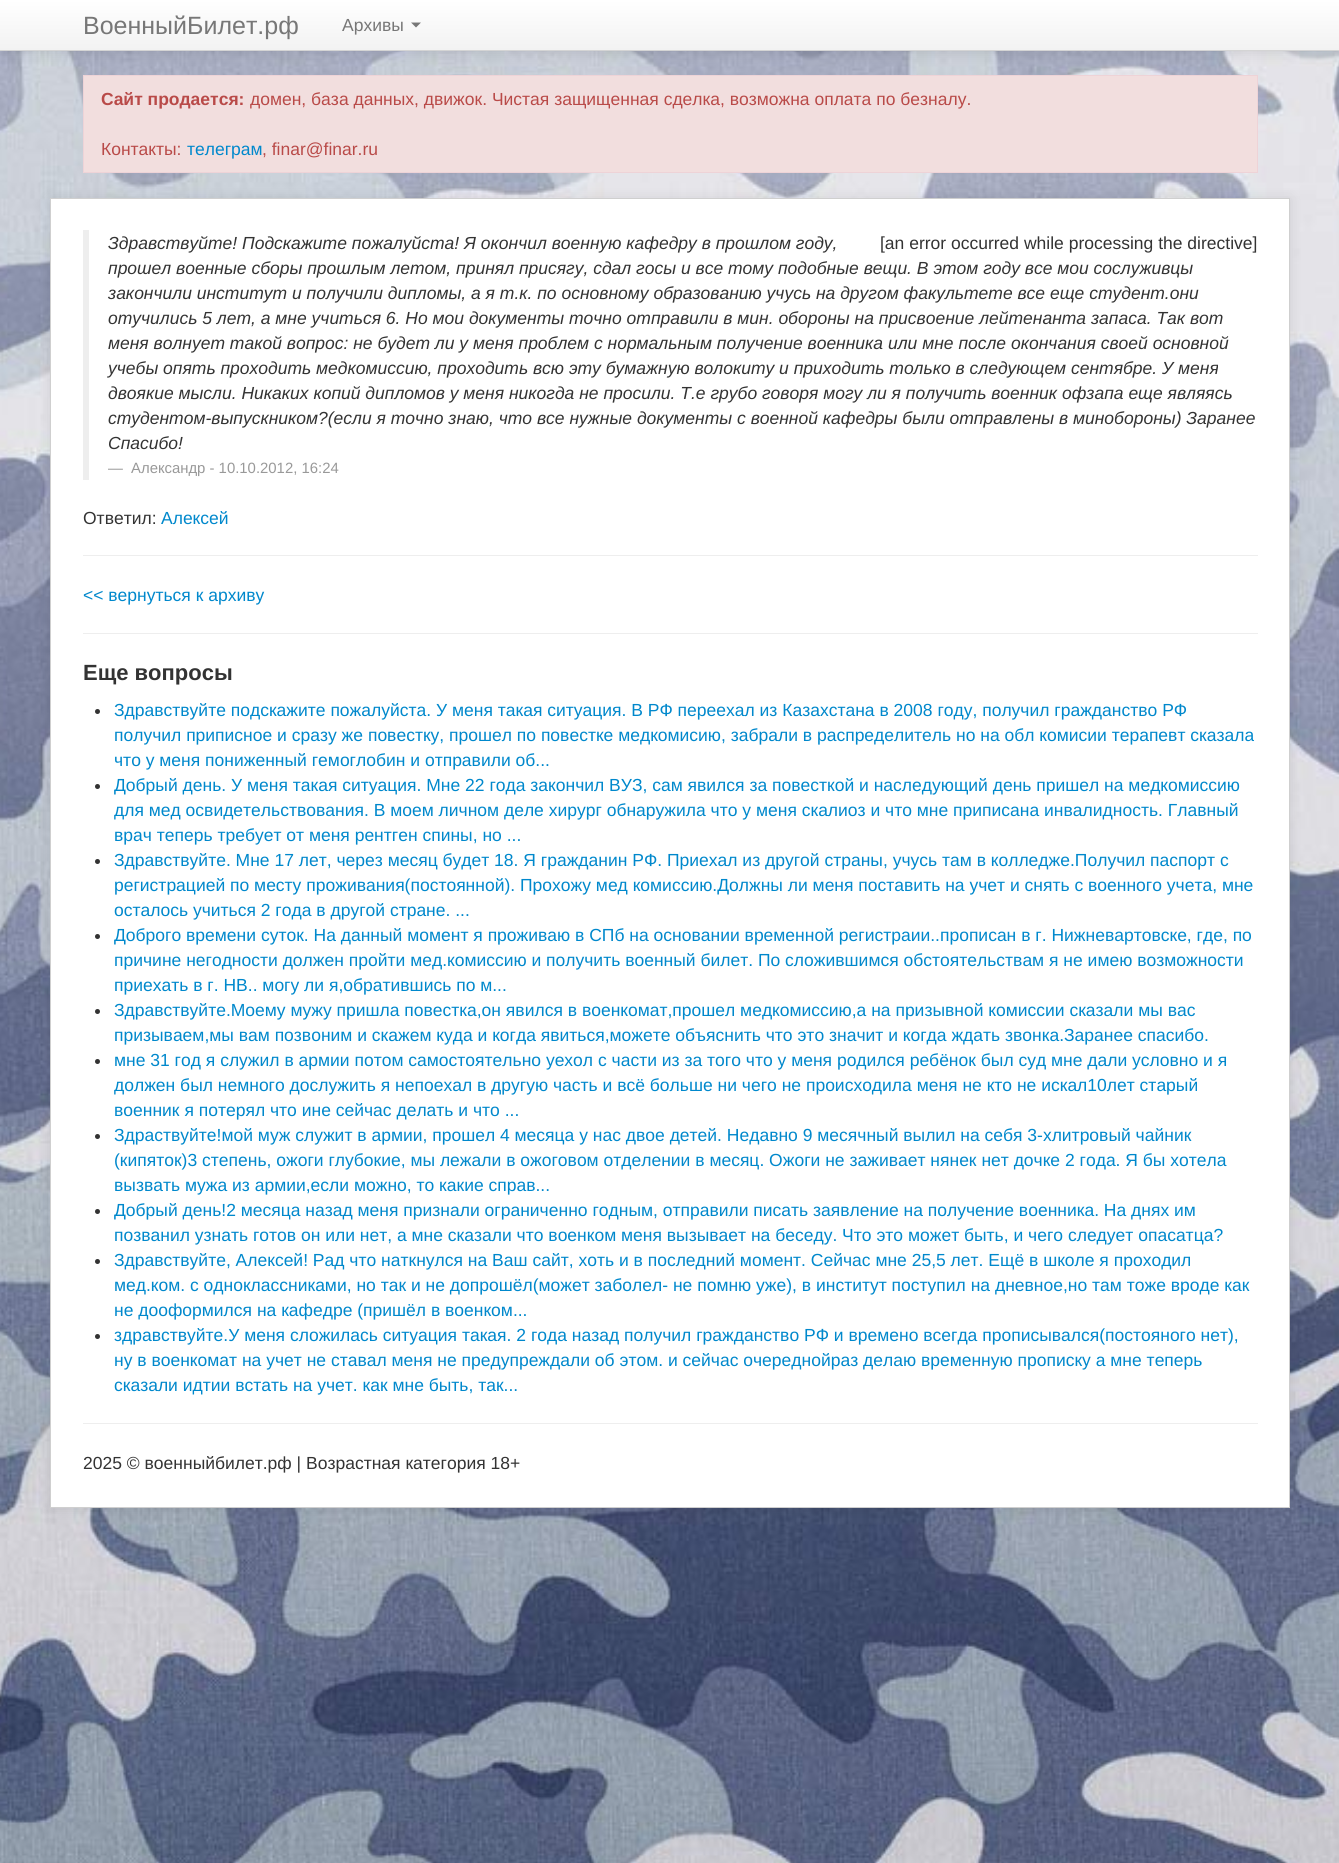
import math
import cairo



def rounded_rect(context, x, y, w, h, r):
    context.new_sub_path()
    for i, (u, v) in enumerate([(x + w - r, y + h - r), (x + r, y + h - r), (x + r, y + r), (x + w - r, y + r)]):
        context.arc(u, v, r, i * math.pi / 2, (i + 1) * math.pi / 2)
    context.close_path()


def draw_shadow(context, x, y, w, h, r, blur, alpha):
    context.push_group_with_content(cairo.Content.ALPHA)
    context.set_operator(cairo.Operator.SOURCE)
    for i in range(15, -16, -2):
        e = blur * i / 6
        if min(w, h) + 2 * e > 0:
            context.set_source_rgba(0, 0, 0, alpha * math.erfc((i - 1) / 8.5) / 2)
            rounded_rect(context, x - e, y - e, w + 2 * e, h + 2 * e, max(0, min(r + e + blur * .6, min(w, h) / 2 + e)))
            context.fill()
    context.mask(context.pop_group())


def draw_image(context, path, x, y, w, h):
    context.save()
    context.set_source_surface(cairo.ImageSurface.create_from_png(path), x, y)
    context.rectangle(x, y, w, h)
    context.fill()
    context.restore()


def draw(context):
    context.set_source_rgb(1, 1, 1)
    context.paint()
    draw_image(context, "images/1.png", 0, 51, 1339, 1812)
    context.set_source_rgb(0, 0, 0)
    draw_shadow(context, 0, 1, 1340, 52, 0, 6, 0.1)
    gradient = cairo.LinearGradient(670, 0, 670, 50)
    gradient.add_color_stop_rgba(0, 1, 1, 1, 1)
    gradient.add_color_stop_rgba(1, 242 / 255, 242 / 255, 242 / 255, 1)
    context.set_source(gradient)
    context.rectangle(0, 0, 1339, 50)
    context.fill()
    context.set_source_rgb(212 / 255, 212 / 255, 212 / 255)
    context.rectangle(0, 50, 1339, 1)
    context.fill()
    context.set_source_rgb(119 / 255, 119 / 255, 119 / 255)
    context.new_path()
    context.move_to(411, 22.5)
    context.line_to(421, 22.5)
    context.line_to(416, 27.5)
    context.close_path()
    context.fill()
    context.set_source_rgb(242 / 255, 222 / 255, 222 / 255)
    context.rectangle(83.5, 75.5, 1174, 97)
    context.fill_preserve()
    context.set_source_rgb(238 / 255, 211 / 255, 215 / 255)
    context.set_line_width(1)
    context.stroke()
    context.set_source_rgb(0, 0, 0)
    draw_shadow(context, 50, 199, 1240, 1310, 0, 6, 0.1)
    context.set_source_rgb(1, 1, 1)
    context.rectangle(50.5, 198.5, 1239, 1309)
    context.fill_preserve()
    context.set_source_rgb(207 / 255, 207 / 255, 207 / 255)
    context.stroke()
    context.set_source_rgb(238 / 255, 238 / 255, 238 / 255)
    context.rectangle(83, 230, 6, 250)
    context.fill()
    context.rectangle(83, 555, 1175, 1)
    context.fill()
    context.rectangle(83, 633, 1175, 1)
    context.fill()
    context.set_source_rgb(51 / 255, 51 / 255, 51 / 255)
    context.arc(97.5, 711.5, 2.5, 0, 2 * math.pi)
    context.fill()
    context.arc(97.5, 786.5, 2.5, 0, 2 * math.pi)
    context.fill()
    context.arc(97.5, 861.5, 2.5, 0, 2 * math.pi)
    context.fill()
    context.arc(97.5, 936.5, 2.5, 0, 2 * math.pi)
    context.fill()
    context.arc(97.5, 1011.5, 2.5, 0, 2 * math.pi)
    context.fill()
    context.arc(97.5, 1061.5, 2.5, 0, 2 * math.pi)
    context.fill()
    context.arc(97.5, 1136.5, 2.5, 0, 2 * math.pi)
    context.fill()
    context.arc(97.5, 1211.5, 2.5, 0, 2 * math.pi)
    context.fill()
    context.arc(97.5, 1261.5, 2.5, 0, 2 * math.pi)
    context.fill()
    context.arc(97.5, 1336.5, 2.5, 0, 2 * math.pi)
    context.fill()
    context.set_source_rgb(238 / 255, 238 / 255, 238 / 255)
    context.rectangle(83, 1423, 1175, 1)
    context.fill()
    context.select_font_face("Liberation Sans")
    context.set_font_size(25)
    context.set_source_rgb(119 / 255, 119 / 255, 119 / 255)
    context.move_to(83, 34)
    context.show_text("ВоенныйБилет.рф")
    context.set_font_size(17.5)
    context.move_to(342, 31)
    context.show_text("Архивы")
    context.select_font_face("Liberation Sans", cairo.FontSlant.NORMAL, cairo.FontWeight.BOLD)
    context.set_source_rgb(185 / 255, 74 / 255, 72 / 255)
    context.move_to(101, 105)
    context.show_text("Сайт продается:")
    context.select_font_face("Liberation Sans")
    context.move_to(250, 105)
    context.show_text("домен, база данных, движок. Чистая защищенная сделка, возможна оплата по безналу.")
    context.move_to(101, 155)
    context.show_text("Контакты:")
    context.set_source_rgb(0, 136 / 255, 204 / 255)
    context.move_to(187, 155)
    context.show_text("телеграм")
    context.set_source_rgb(185 / 255, 74 / 255, 72 / 255)
    context.move_to(262, 155)
    context.show_text(", finar@finar.ru")
    context.select_font_face("Liberation Sans", cairo.FontSlant.ITALIC)
    context.set_source_rgb(51 / 255, 51 / 255, 51 / 255)
    context.move_to(108, 249)
    context.show_text("Здравствуйте! Подскажите пожалуйста! Я окончил военную кафедру в прошлом году,")
    context.move_to(108, 274)
    context.show_text("прошел военные сборы прошлым летом, принял присягу, сдал госы и все тому подобные вещи. В этом году все мои сослуживцы")
    context.move_to(108, 299)
    context.show_text("закончили институт и получили дипломы, а я т.к. по основному образованию учусь на другом факультете все еще студент.они")
    context.move_to(108, 324)
    context.show_text("отучились 5 лет, а мне учиться 6. Но мои документы точно отправили в мин. обороны на присвоение лейтенанта запаса. Так вот")
    context.move_to(108, 349)
    context.show_text("меня волнует такой вопрос: не будет ли у меня проблем с нормальным получение военника или мне после окончания своей основной")
    context.move_to(108, 374)
    context.show_text("учебы опять проходить медкомиссию, проходить всю эту бумажную волокиту и приходить только в следующем сентябре. У меня")
    context.move_to(108, 399)
    context.show_text("двоякие мысли. Никаких копий дипломов у меня никогда не просили. Т.е грубо говоря могу ли я получить военник офзапа еще являясь")
    context.move_to(108, 424)
    context.show_text("студентом-выпускником?(если я точно знаю, что все нужные документы с военной кафедры были отправлены в минобороны) Заранее")
    context.move_to(108, 449)
    context.show_text("Спасибо!")
    context.select_font_face("Liberation Sans")
    context.set_font_size(14.9)
    context.set_source_rgb(153 / 255, 153 / 255, 153 / 255)
    context.move_to(108, 473)
    context.show_text("—")
    context.move_to(131, 473)
    context.show_text("Александр - 10.10.2012, 16:24")
    context.set_font_size(17.5)
    context.set_source_rgb(51 / 255, 51 / 255, 51 / 255)
    context.move_to(880, 249)
    context.show_text("[an error occurred while processing the directive]")
    context.move_to(83, 524)
    context.show_text("Ответил:")
    context.set_source_rgb(0, 136 / 255, 204 / 255)
    context.move_to(161, 524)
    context.show_text("Алексей")
    context.move_to(83, 601)
    context.show_text("<< вернуться к архиву")
    context.select_font_face("Liberation Sans", cairo.FontSlant.NORMAL, cairo.FontWeight.BOLD)
    context.set_font_size(22)
    context.set_source_rgb(51 / 255, 51 / 255, 51 / 255)
    context.move_to(83, 680)
    context.show_text("Еще вопросы")
    context.select_font_face("Liberation Sans")
    context.set_font_size(17.5)
    context.set_source_rgb(0, 136 / 255, 204 / 255)
    context.move_to(114, 716)
    context.show_text("Здравствуйте подскажите пожалуйста. У меня такая ситуация. В РФ переехал из Казахстана в 2008 году, получил гражданство РФ")
    context.move_to(114, 741)
    context.show_text("получил приписное и сразу же повестку, прошел по повестке медкомисию, забрали в распределитель но на обл комисии терапевт сказала")
    context.move_to(114, 766)
    context.show_text("что у меня пониженный гемоглобин и отправили об...")
    context.move_to(114, 791)
    context.show_text("Добрый день. У меня такая ситуация. Мне 22 года закончил ВУЗ, сам явился за повесткой и наследующий день пришел на медкомиссию")
    context.move_to(114, 816)
    context.show_text("для мед освидетельствования. В моем личном деле хирург обнаружила что у меня скалиоз и что мне приписана инвалидность. Главный")
    context.move_to(114, 841)
    context.show_text("врач теперь требует от меня рентген спины, но ...")
    context.move_to(114, 866)
    context.show_text("Здравствуйте. Мне 17 лет, через месяц будет 18. Я гражданин РФ. Приехал из другой страны, учусь там в колледже.Получил паспорт с")
    context.move_to(114, 891)
    context.show_text("регистрацией по месту проживания(постоянной). Прохожу мед комиссию.Должны ли меня поставить на учет и снять с военного учета, мне")
    context.move_to(114, 916)
    context.show_text("осталось учиться 2 года в другой стране. ...")
    context.move_to(114, 941)
    context.show_text("Доброго времени суток. На данный момент я проживаю в СПб на основании временной регистраии..прописан в г. Нижневартовске, где, по")
    context.move_to(114, 966)
    context.show_text("причине негодности должен пройти мед.комиссию и получить военный билет. По сложившимся обстоятельствам я не имею возможности")
    context.move_to(114, 991)
    context.show_text("приехать в г. НВ.. могу ли я,обратившись по м...")
    context.move_to(114, 1016)
    context.show_text("Здравствуйте.Моему мужу пришла повестка,он явился в военкомат,прошел медкомиссию,а на призывной комиссии сказали мы вас")
    context.move_to(114, 1041)
    context.show_text("призываем,мы вам позвоним и скажем куда и когда явиться,можете объяснить что это значит и когда ждать звонка.Заранее спасибо.")
    context.move_to(114, 1066)
    context.show_text("мне 31 год я служил в армии потом самостоятельно уехол с части из за того что у меня родился ребёнок был суд мне дали условно и я")
    context.move_to(114, 1091)
    context.show_text("должен был немного дослужить я непоехал в другую часть и всё больше ни чего не происходила меня не кто не искал10лет старый")
    context.move_to(114, 1116)
    context.show_text("военник я потерял что ине сейчас делать и что ...")
    context.move_to(114, 1141)
    context.show_text("Здраствуйте!мой муж служит в армии, прошел 4 месяца у нас двое детей. Недавно 9 месячный вылил на себя 3-хлитровый чайник")
    context.move_to(114, 1166)
    context.show_text("(кипяток)3 степень, ожоги глубокие, мы лежали в ожоговом отделении в месяц. Ожоги не заживает нянек нет дочке 2 года. Я бы хотела")
    context.move_to(114, 1191)
    context.show_text("вызвать мужа из армии,если можно, то какие справ...")
    context.move_to(114, 1216)
    context.show_text("Добрый день!2 месяца назад меня признали ограниченно годным, отправили писать заявление на получение военника. На днях им")
    context.move_to(114, 1241)
    context.show_text("позванил узнать готов он или нет, а мне сказали что военком меня вызывает на беседу. Что это может быть, и чего следует опасатца?")
    context.move_to(114, 1266)
    context.show_text("Здравствуйте, Алексей! Рад что наткнулся на Ваш сайт, хоть и в последний момент. Сейчас мне 25,5 лет. Ещё в школе я проходил")
    context.move_to(114, 1291)
    context.show_text("мед.ком. с одноклассниками, но так и не допрошёл(может заболел- не помню уже), в институт поступил на дневное,но там тоже вроде как")
    context.move_to(114, 1316)
    context.show_text("не дооформился на кафедре (пришёл в военком...")
    context.move_to(114, 1341)
    context.show_text("здравствуйте.У меня сложилась ситуация такая. 2 года назад получил гражданство РФ и времено всегда прописывался(постояного нет),")
    context.move_to(114, 1366)
    context.show_text("ну в военкомат на учет не ставал меня не предупреждали об этом. и сейчас очереднойраз делаю временную прописку а мне теперь")
    context.move_to(114, 1391)
    context.show_text("сказали идтии встать на учет. как мне быть, так...")
    context.set_source_rgb(51 / 255, 51 / 255, 51 / 255)
    context.move_to(83, 1469)
    context.show_text("2025 © военныйбилет.рф | Возрастная категория 18+")


surface = cairo.ImageSurface(cairo.Format.RGB24, 1339, 1863)
context = cairo.Context(surface)
options = cairo.FontOptions()
options.set_hint_metrics(cairo.HintMetrics.OFF)
options.set_hint_style(cairo.HintStyle.NONE)
context.set_font_options(options)
context.set_miter_limit(4)
draw(context)
surface.write_to_png("out.png")
